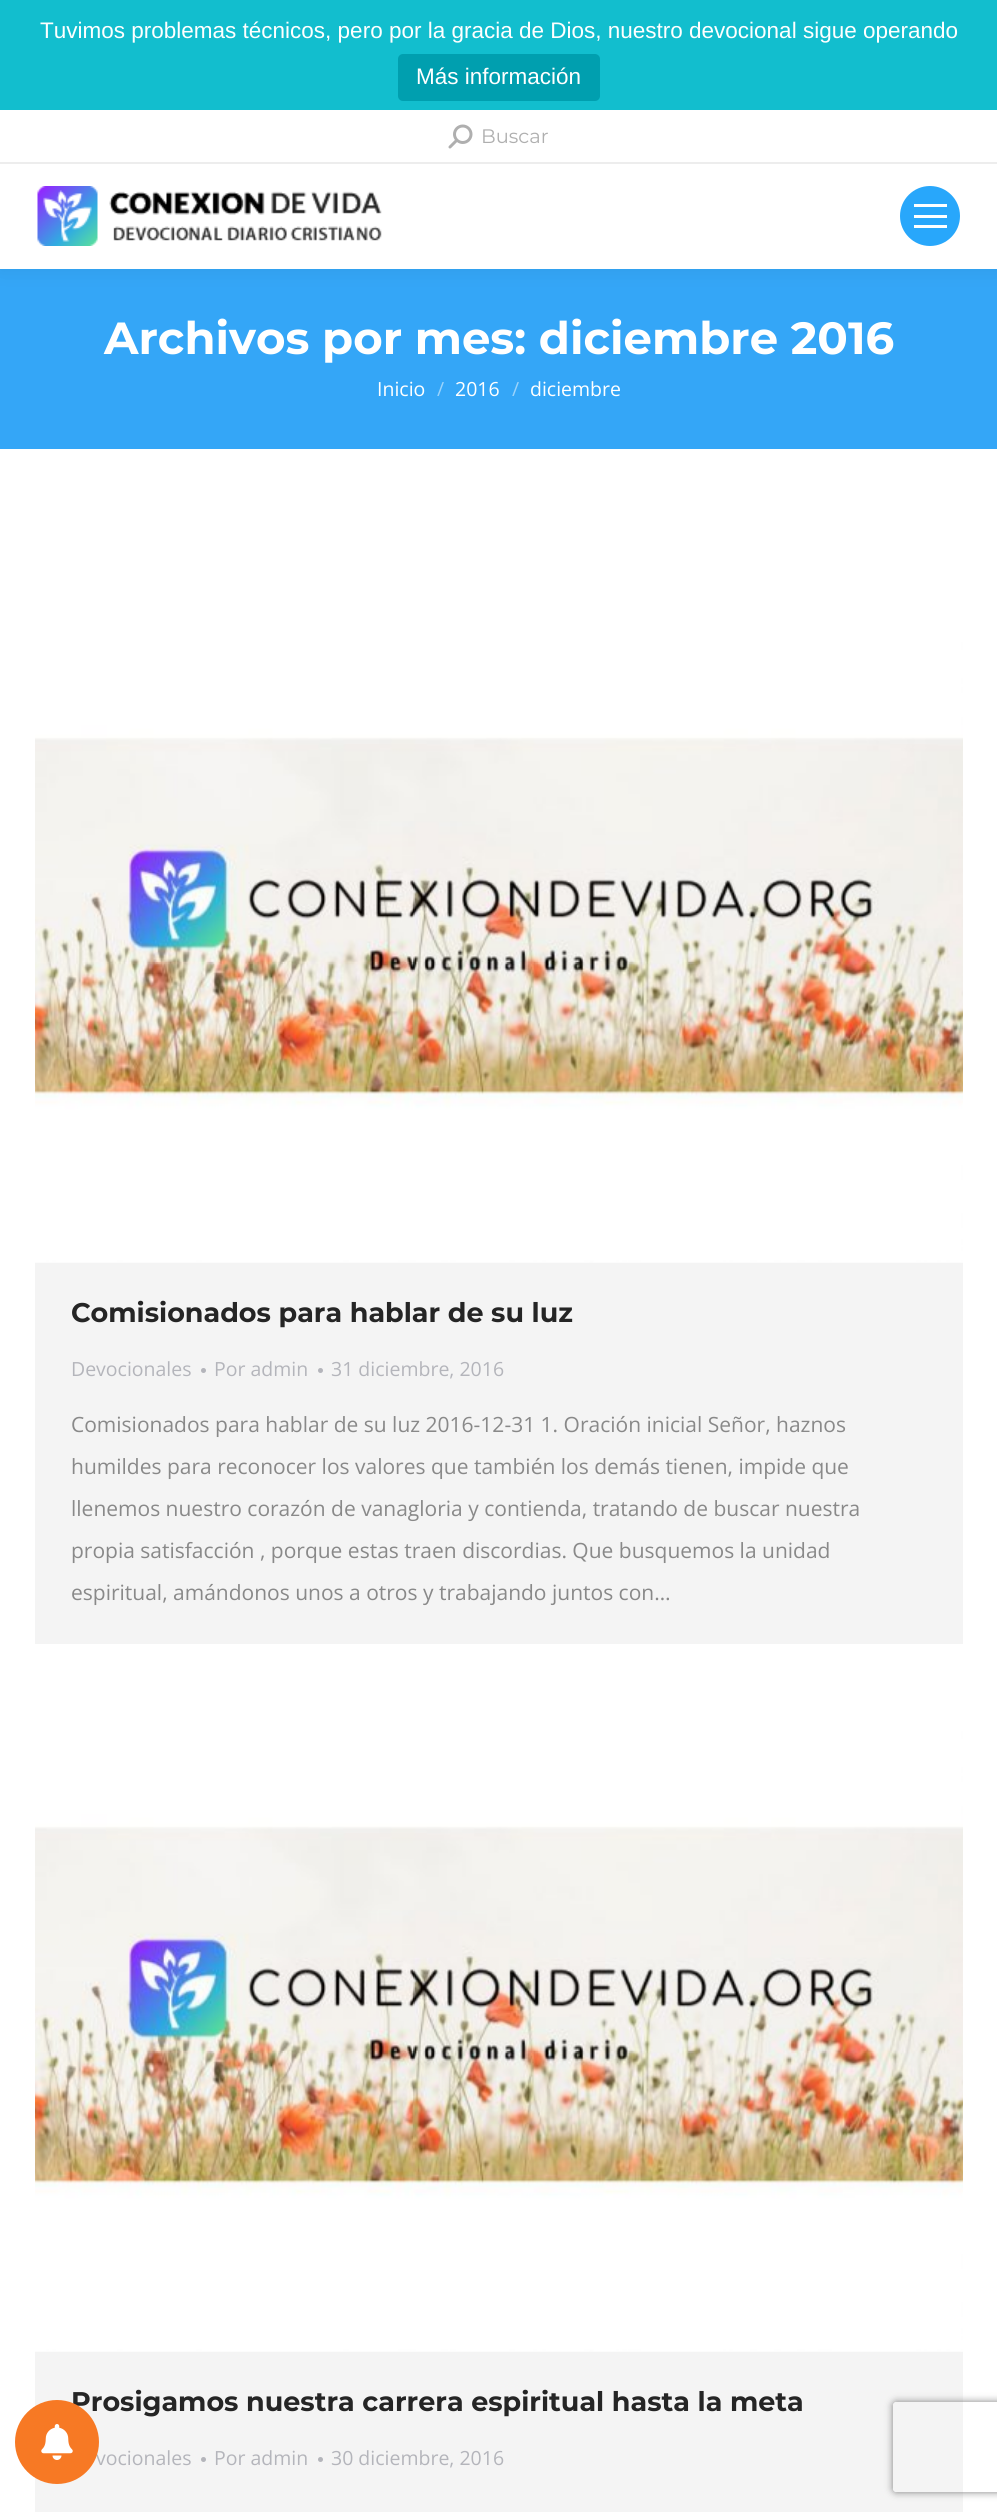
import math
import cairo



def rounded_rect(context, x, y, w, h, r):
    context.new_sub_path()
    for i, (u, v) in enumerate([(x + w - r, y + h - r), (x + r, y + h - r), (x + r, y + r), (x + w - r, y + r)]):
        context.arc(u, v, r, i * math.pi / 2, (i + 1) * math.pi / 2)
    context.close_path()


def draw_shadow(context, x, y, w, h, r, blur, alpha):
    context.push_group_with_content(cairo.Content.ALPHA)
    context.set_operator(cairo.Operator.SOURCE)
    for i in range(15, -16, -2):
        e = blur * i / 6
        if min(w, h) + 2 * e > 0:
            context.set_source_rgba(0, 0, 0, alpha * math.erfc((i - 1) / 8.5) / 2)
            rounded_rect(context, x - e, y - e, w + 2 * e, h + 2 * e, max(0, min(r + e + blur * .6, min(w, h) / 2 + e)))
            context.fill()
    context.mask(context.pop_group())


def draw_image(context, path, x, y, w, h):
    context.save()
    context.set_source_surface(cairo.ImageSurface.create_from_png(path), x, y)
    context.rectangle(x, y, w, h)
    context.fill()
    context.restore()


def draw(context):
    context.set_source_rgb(1, 1, 1)
    context.paint()
    context.set_source_rgb(18 / 255, 190 / 255, 206 / 255)
    context.rectangle(0, 0, 997, 110)
    context.fill()
    context.set_source_rgb(0, 159 / 255, 175 / 255)
    rounded_rect(context, 398, 54, 202, 47, 5)
    context.fill()
    context.set_source_rgb(52 / 255, 166 / 255, 247 / 255)
    context.rectangle(0, 269, 997, 180)
    context.fill()
    context.save()
    context.rectangle(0, 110, 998, 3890)
    context.clip()
    context.set_source_rgb(0, 0, 0)
    draw_shadow(context, -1, 108, 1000, 162, 0, 11, 0.07)
    context.restore()
    context.set_source_rgb(1, 1, 1)
    context.rectangle(0, 110, 997, 159)
    context.fill()
    draw_image(context, "images/2.png", 448, 124, 25, 25)
    context.set_source_rgb(237 / 255, 237 / 255, 237 / 255)
    context.rectangle(0, 162, 997, 2)
    context.fill()
    draw_image(context, "images/3.png", 37, 186, 345, 60)
    context.set_source_rgb(40 / 255, 167 / 255, 251 / 255)
    context.arc(930, 216, 30, 0, 2 * math.pi)
    context.fill()
    context.set_source_rgb(1, 1, 1)
    context.rectangle(914, 204, 33, 3)
    context.fill()
    context.rectangle(914, 215, 33, 3)
    context.fill()
    context.rectangle(914, 225, 33, 3)
    context.fill()
    context.set_source_rgb(244 / 255, 244 / 255, 244 / 255)
    context.rectangle(35, 1262, 928, 382)
    context.fill()
    draw_image(context, "images/4.png", 35, 584, 928, 679)
    context.set_source_rgb(180 / 255, 181 / 255, 187 / 255)
    context.arc(203.5, 1370.5, 2.5, 0, 2 * math.pi)
    context.fill()
    context.arc(320.5, 1370.5, 2.5, 0, 2 * math.pi)
    context.fill()
    context.set_source_rgb(244 / 255, 244 / 255, 244 / 255)
    context.rectangle(35, 2351, 928, 161)
    context.fill()
    draw_image(context, "images/4.png", 35, 1673, 928, 679)
    context.set_source_rgb(180 / 255, 181 / 255, 187 / 255)
    context.arc(203.5, 2459.5, 2.5, 0, 2 * math.pi)
    context.fill()
    context.arc(320.5, 2459.5, 2.5, 0, 2 * math.pi)
    context.fill()
    context.save()
    context.set_fill_rule(cairo.FillRule.EVEN_ODD)
    context.new_path()
    context.move_to(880, 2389)
    context.line_to(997, 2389)
    context.line_to(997, 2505)
    context.line_to(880, 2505)
    context.close_path()
    context.move_to(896, 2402)
    context.line_to(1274, 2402)
    context.curve_to(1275.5, 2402, 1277, 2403.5, 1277, 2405)
    context.line_to(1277, 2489)
    context.curve_to(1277, 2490.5, 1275.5, 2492, 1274, 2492)
    context.line_to(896, 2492)
    context.curve_to(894.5, 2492, 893, 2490.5, 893, 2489)
    context.line_to(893, 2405)
    context.curve_to(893, 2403.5, 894.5, 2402, 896, 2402)
    context.close_path()
    context.clip()
    context.set_source_rgb(128 / 255, 128 / 255, 128 / 255)
    draw_shadow(context, 893, 2402, 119, 90, 3, 4, 1)
    context.restore()
    context.select_font_face("Liberation Sans")
    context.set_font_size(22.5)
    context.set_source_rgb(1, 1, 1)
    context.move_to(40, 38)
    context.show_text("Tuvimos problemas técnicos, pero por la gracia de Dios, nuestro devocional sigue operando")
    context.move_to(416, 84)
    context.show_text("Más información")
    context.select_font_face("Montserrat")
    context.set_font_size(19.5)
    context.set_source_rgb(175 / 255, 175 / 255, 175 / 255)
    context.move_to(481, 143)
    context.show_text("Buscar")
    context.select_font_face("Montserrat", cairo.FontSlant.NORMAL, cairo.FontWeight.BOLD)
    context.set_font_size(45)
    context.set_source_rgb(1, 1, 1)
    context.move_to(104, 354)
    context.show_text("Archivos por mes: diciembre 2016")
    context.select_font_face("Open Sans")
    context.set_font_size(19.5)
    context.move_to(377, 396)
    context.show_text("Inicio")
    context.set_source_rgb(154 / 255, 211 / 255, 251 / 255)
    context.move_to(437, 396)
    context.show_text("/")
    context.set_source_rgb(1, 1, 1)
    context.move_to(455, 396)
    context.show_text("2016")
    context.set_source_rgb(154 / 255, 211 / 255, 251 / 255)
    context.move_to(512, 396)
    context.show_text("/")
    context.set_source_rgb(1, 1, 1)
    context.move_to(530, 396)
    context.show_text("diciembre")
    context.select_font_face("Montserrat", cairo.FontSlant.NORMAL, cairo.FontWeight.BOLD)
    context.set_font_size(27)
    context.set_source_rgb(37 / 255, 37 / 255, 37 / 255)
    context.move_to(71, 1322)
    context.show_text("Comisionados para hablar de su luz")
    context.select_font_face("Open Sans")
    context.set_font_size(19.5)
    context.set_source_rgb(180 / 255, 181 / 255, 187 / 255)
    context.move_to(71, 1376)
    context.show_text("Devocionales")
    context.move_to(214, 1376)
    context.show_text("Por admin")
    context.move_to(331, 1376)
    context.show_text("31 diciembre, 2016")
    context.set_font_size(21)
    context.set_source_rgb(137 / 255, 137 / 255, 137 / 255)
    context.move_to(71, 1432)
    context.show_text("Comisionados para hablar de su luz 2016-12-31 1. Oración inicial Señor, haznos")
    context.move_to(71, 1474)
    context.show_text("humildes para reconocer los valores que también los demás tienen, impide que")
    context.move_to(71, 1516)
    context.show_text("llenemos nuestro corazón de vanagloria y contienda, tratando de buscar nuestra")
    context.move_to(71, 1558)
    context.show_text("propia satisfacción , porque estas traen discordias. Que busquemos la unidad")
    context.move_to(71, 1600)
    context.show_text("espiritual, amándonos unos a otros y trabajando juntos con…")
    context.select_font_face("Montserrat", cairo.FontSlant.NORMAL, cairo.FontWeight.BOLD)
    context.set_font_size(27)
    context.set_source_rgb(37 / 255, 37 / 255, 37 / 255)
    context.move_to(71, 2411)
    context.show_text("Prosigamos nuestra carrera espiritual hasta la meta")
    context.select_font_face("Open Sans")
    context.set_font_size(19.5)
    context.set_source_rgb(180 / 255, 181 / 255, 187 / 255)
    context.move_to(96, 2465)
    context.show_text("vocionales")
    context.set_source_rgb(247 / 255, 121 / 255, 36 / 255)
    context.new_path()
    context.arc(57, 2442, 42, 0, 2 * math.pi)
    context.fill()
    draw_image(context, "images/1.png", 41, 2424, 32, 36)
    context.set_source_rgb(180 / 255, 181 / 255, 187 / 255)
    context.move_to(214, 2465)
    context.show_text("Por admin")
    context.move_to(331, 2465)
    context.show_text("30 diciembre, 2016")


surface = cairo.ImageSurface(cairo.Format.RGB24, 997, 2512)
context = cairo.Context(surface)
options = cairo.FontOptions()
options.set_hint_metrics(cairo.HintMetrics.OFF)
options.set_hint_style(cairo.HintStyle.NONE)
context.set_font_options(options)
context.set_miter_limit(4)
draw(context)
surface.write_to_png("out.png")
